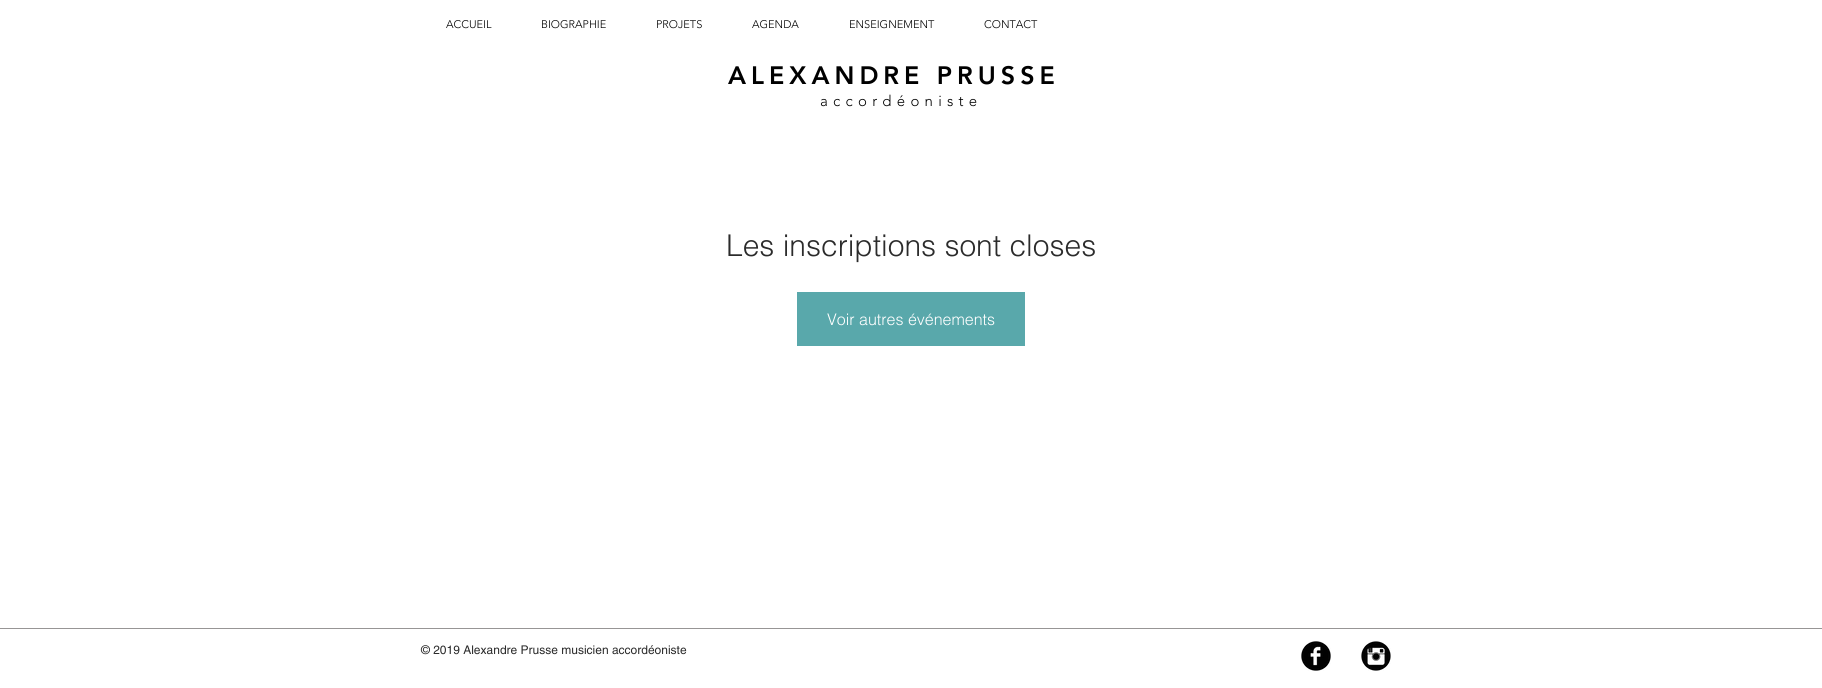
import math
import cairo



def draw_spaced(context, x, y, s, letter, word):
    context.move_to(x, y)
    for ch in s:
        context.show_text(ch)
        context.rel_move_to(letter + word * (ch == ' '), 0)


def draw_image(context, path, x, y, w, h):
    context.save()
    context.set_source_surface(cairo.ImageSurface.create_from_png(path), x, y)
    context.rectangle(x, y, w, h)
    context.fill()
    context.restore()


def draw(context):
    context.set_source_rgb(1, 1, 1)
    context.paint()
    context.set_source_rgb(89 / 255, 168 / 255, 171 / 255)
    context.rectangle(797, 292, 228, 54)
    context.fill()
    context.set_source_rgb(151 / 255, 149 / 255, 149 / 255)
    context.rectangle(0, 628, 1822, 1)
    context.fill()
    draw_image(context, "images/1.png", 1301, 641, 30, 30)
    draw_image(context, "images/2.png", 1361, 641, 30, 30)
    context.select_font_face("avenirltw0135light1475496 Light")
    context.set_font_size(11)
    context.set_source_rgb(0, 0, 0)
    context.move_to(446, 28)
    context.show_text("ACCUEIL")
    context.move_to(541, 28)
    context.show_text("BIOGRAPHIE")
    context.move_to(656, 28)
    context.show_text("PROJETS")
    context.move_to(752, 28)
    context.show_text("AGENDA")
    context.move_to(849, 28)
    context.show_text("ENSEIGNEMENT")
    context.move_to(984, 28)
    context.show_text("CONTACT")
    context.select_font_face("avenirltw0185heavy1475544 Black")
    context.set_font_size(25)
    draw_spaced(context, 728, 84, "ALEXANDRE PRUSSE", 5, 0)
    context.select_font_face("avenirltw0135light1475496 Light")
    context.set_font_size(15)
    draw_spaced(context, 820, 106, "accordéoniste", 5.25, 0)
    context.select_font_face("helvetica Light")
    context.set_font_size(30)
    context.set_source_rgb(43 / 255, 43 / 255, 43 / 255)
    context.move_to(726, 256)
    context.show_text("Les inscriptions sont closes")
    context.set_font_size(16)
    context.set_source_rgb(1, 1, 1)
    context.move_to(827, 325)
    context.show_text("Voir autres événements")
    context.select_font_face("helvetica")
    context.set_font_size(12)
    context.set_source_rgb(43 / 255, 43 / 255, 43 / 255)
    context.move_to(421, 654)
    context.show_text("© 2019 Alexandre Prusse musicien accordéoniste")


surface = cairo.ImageSurface(cairo.Format.RGB24, 1822, 688)
context = cairo.Context(surface)
options = cairo.FontOptions()
options.set_hint_metrics(cairo.HintMetrics.OFF)
options.set_hint_style(cairo.HintStyle.NONE)
context.set_font_options(options)
context.set_miter_limit(4)
draw(context)
surface.write_to_png("out.png")
